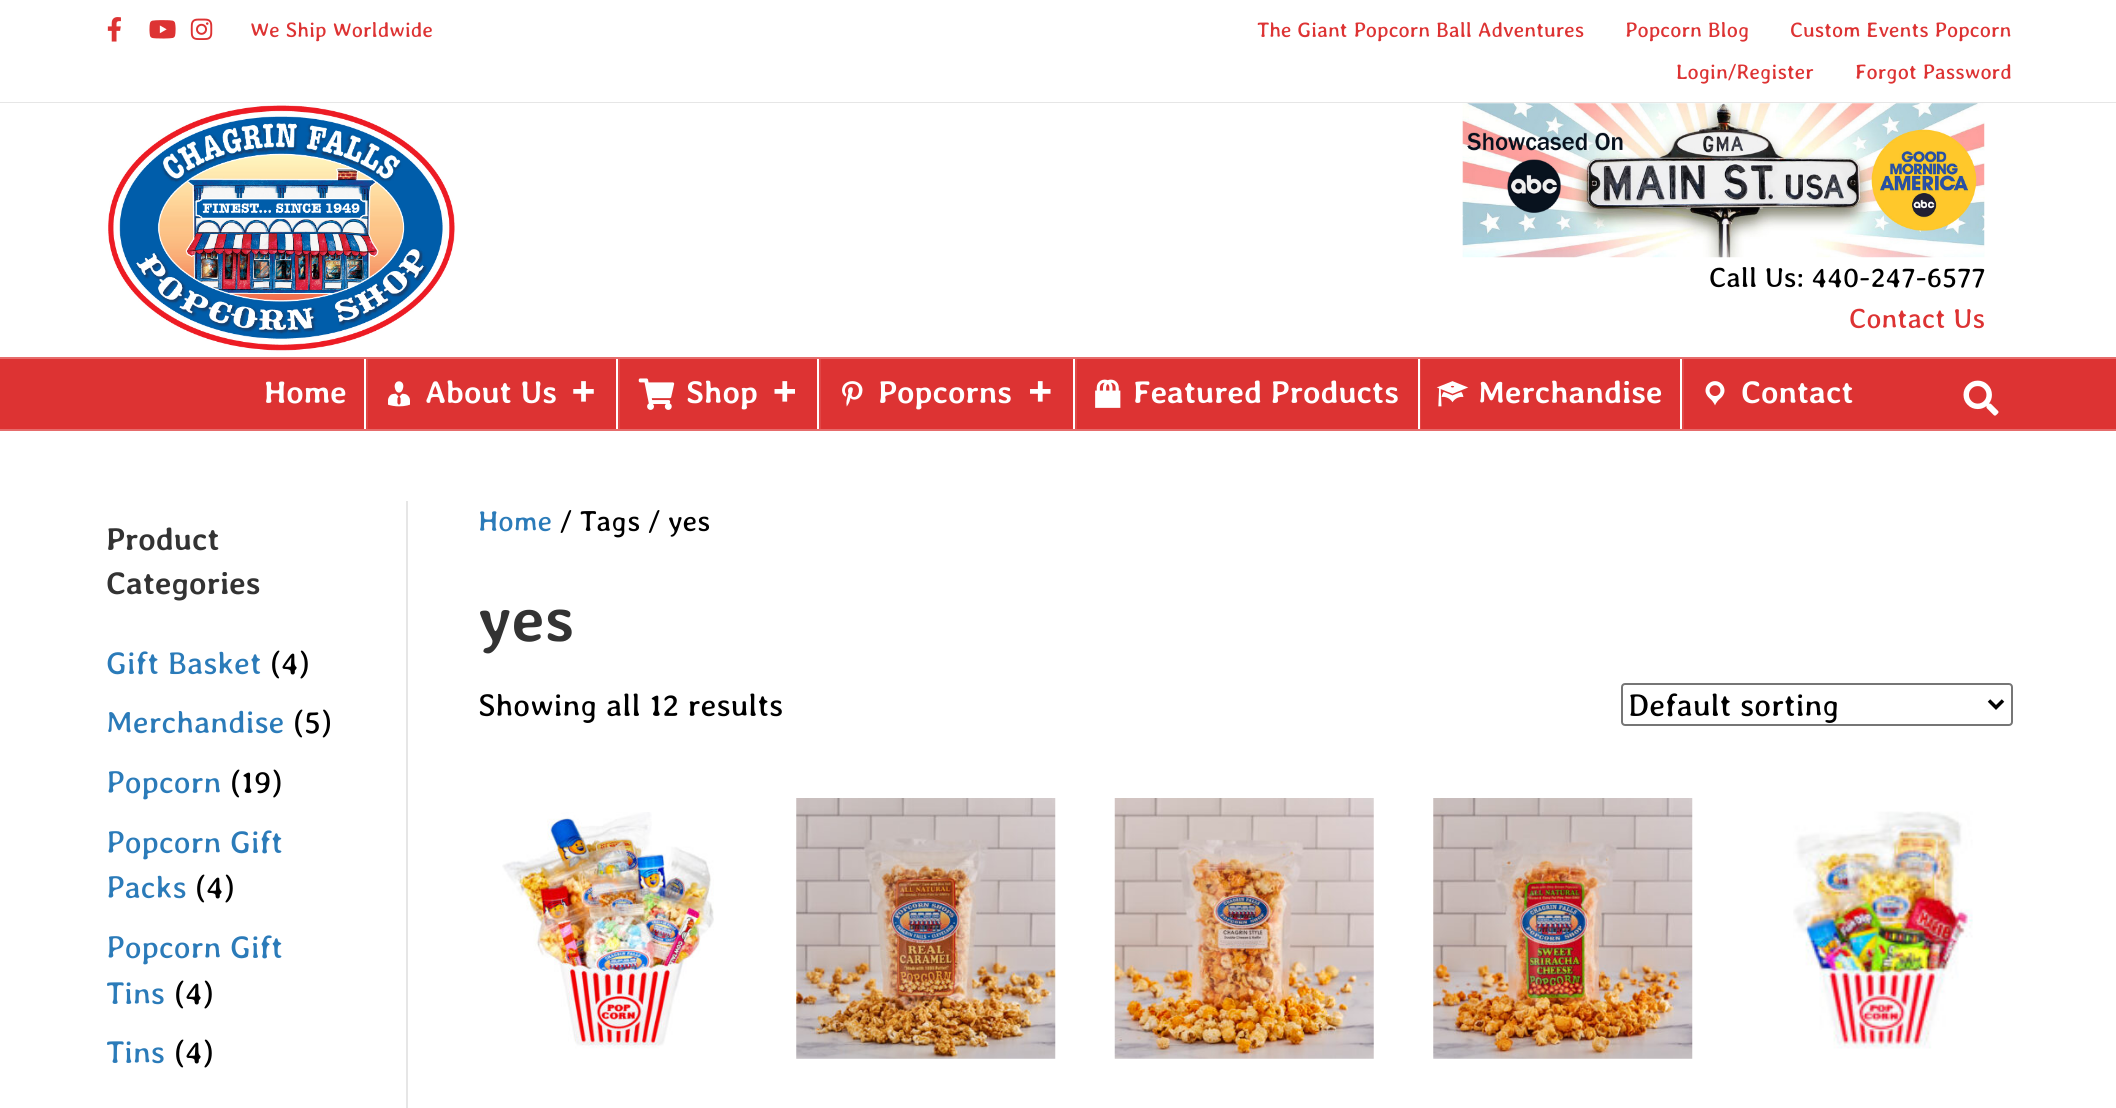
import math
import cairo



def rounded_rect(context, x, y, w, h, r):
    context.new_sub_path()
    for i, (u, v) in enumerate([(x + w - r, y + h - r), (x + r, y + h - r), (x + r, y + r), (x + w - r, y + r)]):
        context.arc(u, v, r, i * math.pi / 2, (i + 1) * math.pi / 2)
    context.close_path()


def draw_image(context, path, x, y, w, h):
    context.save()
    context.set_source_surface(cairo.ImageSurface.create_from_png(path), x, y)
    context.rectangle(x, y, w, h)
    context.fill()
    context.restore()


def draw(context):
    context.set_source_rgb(1, 1, 1)
    context.paint()
    context.set_source_rgb(230 / 255, 230 / 255, 230 / 255)
    context.rectangle(0, 102, 2116, 1)
    context.fill()
    draw_image(context, "images/1.png", 107, 17, 14, 25)
    draw_image(context, "images/2.png", 149, 20, 27, 19)
    draw_image(context, "images/3.png", 190, 18, 23, 22)
    draw_image(context, "images/4.png", 108, 105, 347, 246)
    draw_image(context, "images/5.png", 1462, 103, 523, 155)
    context.set_source_rgb(221 / 255, 51 / 255, 51 / 255)
    context.rectangle(0, 359, 2116, 70)
    context.fill()
    context.set_source_rgb(230 / 255, 108 / 255, 108 / 255)
    context.rectangle(0, 357, 2116, 2)
    context.fill()
    context.rectangle(0, 429, 2116, 2)
    context.fill()
    context.set_source_rgb(224 / 255, 71 / 255, 71 / 255)
    context.rectangle(366, 359, 2, 70)
    context.fill()
    context.set_source_rgb(1, 1, 1)
    context.rectangle(364, 359, 2, 70)
    context.fill()
    draw_image(context, "images/6.png", 388, 381, 22, 26)
    draw_image(context, "images/7.png", 573, 381, 21, 21)
    context.set_source_rgb(224 / 255, 71 / 255, 71 / 255)
    context.rectangle(618, 359, 2, 70)
    context.fill()
    context.set_source_rgb(1, 1, 1)
    context.rectangle(616, 359, 2, 70)
    context.fill()
    draw_image(context, "images/8.png", 638, 378, 37, 32)
    draw_image(context, "images/9.png", 774, 381, 21, 21)
    context.set_source_rgb(224 / 255, 71 / 255, 71 / 255)
    context.rectangle(819, 359, 2, 70)
    context.fill()
    context.set_source_rgb(1, 1, 1)
    context.rectangle(817, 359, 2, 70)
    context.fill()
    draw_image(context, "images/10.png", 842, 381, 21, 26)
    draw_image(context, "images/11.png", 1030, 381, 21, 21)
    context.set_source_rgb(224 / 255, 71 / 255, 71 / 255)
    context.rectangle(1075, 359, 2, 70)
    context.fill()
    context.set_source_rgb(1, 1, 1)
    context.rectangle(1073, 359, 2, 70)
    context.fill()
    draw_image(context, "images/12.png", 1095, 379, 26, 29)
    context.set_source_rgb(224 / 255, 71 / 255, 71 / 255)
    context.rectangle(1420, 359, 1, 70)
    context.fill()
    context.set_source_rgb(1, 1, 1)
    context.rectangle(1418, 359, 2, 70)
    context.fill()
    draw_image(context, "images/13.png", 1436, 381, 33, 26)
    context.set_source_rgb(224 / 255, 71 / 255, 71 / 255)
    context.rectangle(1682, 359, 2, 70)
    context.fill()
    context.set_source_rgb(1, 1, 1)
    context.rectangle(1680, 359, 2, 70)
    context.fill()
    draw_image(context, "images/14.png", 1705, 381, 20, 25)
    draw_image(context, "images/15.png", 1963, 380, 36, 36)
    context.set_source_rgb(230 / 255, 230 / 255, 230 / 255)
    context.rectangle(406, 501, 2, 607)
    context.fill()
    rounded_rect(context, 1622, 684, 390, 41, 3)
    context.set_source_rgb(118 / 255, 118 / 255, 118 / 255)
    context.stroke()
    context.new_path()
    context.move_to(1989, 700.5)
    context.line_to(1996, 707.5)
    context.line_to(2003, 700.5)
    context.set_source_rgb(2 / 255, 2 / 255, 2 / 255)
    context.set_line_width(3.5)
    context.stroke()
    draw_image(context, "images/16.png", 502, 812, 212, 237)
    draw_image(context, "images/17.png", 796, 798, 260, 261)
    draw_image(context, "images/18.png", 1114, 798, 260, 261)
    draw_image(context, "images/19.png", 1433, 798, 260, 261)
    draw_image(context, "images/20.png", 1793, 811, 180, 238)
    context.select_font_face("Averia Libre")
    context.set_font_size(21)
    context.set_source_rgb(221 / 255, 51 / 255, 51 / 255)
    context.move_to(250, 37)
    context.show_text("We Ship Worldwide")
    context.move_to(1257, 37)
    context.show_text("The Giant Popcorn Ball Adventures")
    context.move_to(1625, 37)
    context.show_text("Popcorn Blog")
    context.move_to(1790, 37)
    context.show_text("Custom Events Popcorn")
    context.move_to(1676, 79)
    context.show_text("Login/Register")
    context.move_to(1855, 79)
    context.show_text("Forgot Password")
    context.set_font_size(28)
    context.set_source_rgb(0, 0, 0)
    context.move_to(1709, 287)
    context.show_text("Call Us: 440-247-6577")
    context.set_source_rgb(221 / 255, 51 / 255, 51 / 255)
    context.move_to(1849, 328)
    context.show_text("Contact Us")
    context.select_font_face("Averia Libre", cairo.FontSlant.NORMAL, cairo.FontWeight.BOLD)
    context.set_font_size(31.5)
    context.set_source_rgb(1, 1, 1)
    context.move_to(264, 403)
    context.show_text("Home")
    context.move_to(425, 403)
    context.show_text("About Us")
    context.move_to(686, 403)
    context.show_text("Shop")
    context.move_to(878, 403)
    context.show_text("Popcorns")
    context.move_to(1133, 403)
    context.show_text("Featured Products")
    context.move_to(1478, 403)
    context.show_text("Merchandise")
    context.move_to(1741, 403)
    context.show_text("Contact")
    context.set_source_rgb(51 / 255, 51 / 255, 51 / 255)
    context.move_to(106, 550)
    context.show_text("Product")
    context.move_to(106, 594)
    context.show_text("Categories")
    context.select_font_face("Averia Libre")
    context.set_source_rgb(43 / 255, 123 / 255, 185 / 255)
    context.move_to(106, 674)
    context.show_text("Gift Basket")
    context.set_source_rgb(0, 0, 0)
    context.move_to(270, 674)
    context.show_text("(4)")
    context.set_source_rgb(43 / 255, 123 / 255, 185 / 255)
    context.move_to(106, 733)
    context.show_text("Merchandise")
    context.set_source_rgb(0, 0, 0)
    context.move_to(293, 733)
    context.show_text("(5)")
    context.set_source_rgb(43 / 255, 123 / 255, 185 / 255)
    context.move_to(106, 793)
    context.show_text("Popcorn")
    context.set_source_rgb(0, 0, 0)
    context.move_to(230, 793)
    context.show_text("(19)")
    context.set_source_rgb(43 / 255, 123 / 255, 185 / 255)
    context.move_to(106, 853)
    context.show_text("Popcorn Gift")
    context.move_to(106, 898)
    context.show_text("Packs")
    context.set_source_rgb(0, 0, 0)
    context.move_to(195, 898)
    context.show_text("(4)")
    context.set_source_rgb(43 / 255, 123 / 255, 185 / 255)
    context.move_to(106, 958)
    context.show_text("Popcorn Gift")
    context.move_to(106, 1004)
    context.show_text("Tins")
    context.set_source_rgb(0, 0, 0)
    context.move_to(174, 1004)
    context.show_text("(4)")
    context.set_source_rgb(43 / 255, 123 / 255, 185 / 255)
    context.move_to(106, 1063)
    context.show_text("Tins")
    context.set_source_rgb(0, 0, 0)
    context.move_to(174, 1063)
    context.show_text("(4)")
    context.set_font_size(29)
    context.set_source_rgb(43 / 255, 123 / 255, 185 / 255)
    context.move_to(478, 531)
    context.show_text("Home")
    context.set_source_rgb(0, 0, 0)
    context.move_to(560, 531)
    context.show_text("/ Tags / yes")
    context.select_font_face("Averia Libre", cairo.FontSlant.NORMAL, cairo.FontWeight.BOLD)
    context.set_font_size(63)
    context.set_source_rgb(51 / 255, 51 / 255, 51 / 255)
    context.move_to(478, 641)
    context.show_text("yes")
    context.select_font_face("Averia Libre")
    context.set_font_size(31.5)
    context.set_source_rgb(0, 0, 0)
    context.move_to(478, 716)
    context.show_text("Showing all 12 results")
    context.move_to(1628, 716)
    context.show_text("Default sorting")


surface = cairo.ImageSurface(cairo.Format.RGB24, 2116, 1108)
context = cairo.Context(surface)
options = cairo.FontOptions()
options.set_hint_metrics(cairo.HintMetrics.OFF)
options.set_hint_style(cairo.HintStyle.NONE)
context.set_font_options(options)
context.set_miter_limit(4)
draw(context)
surface.write_to_png("out.png")
